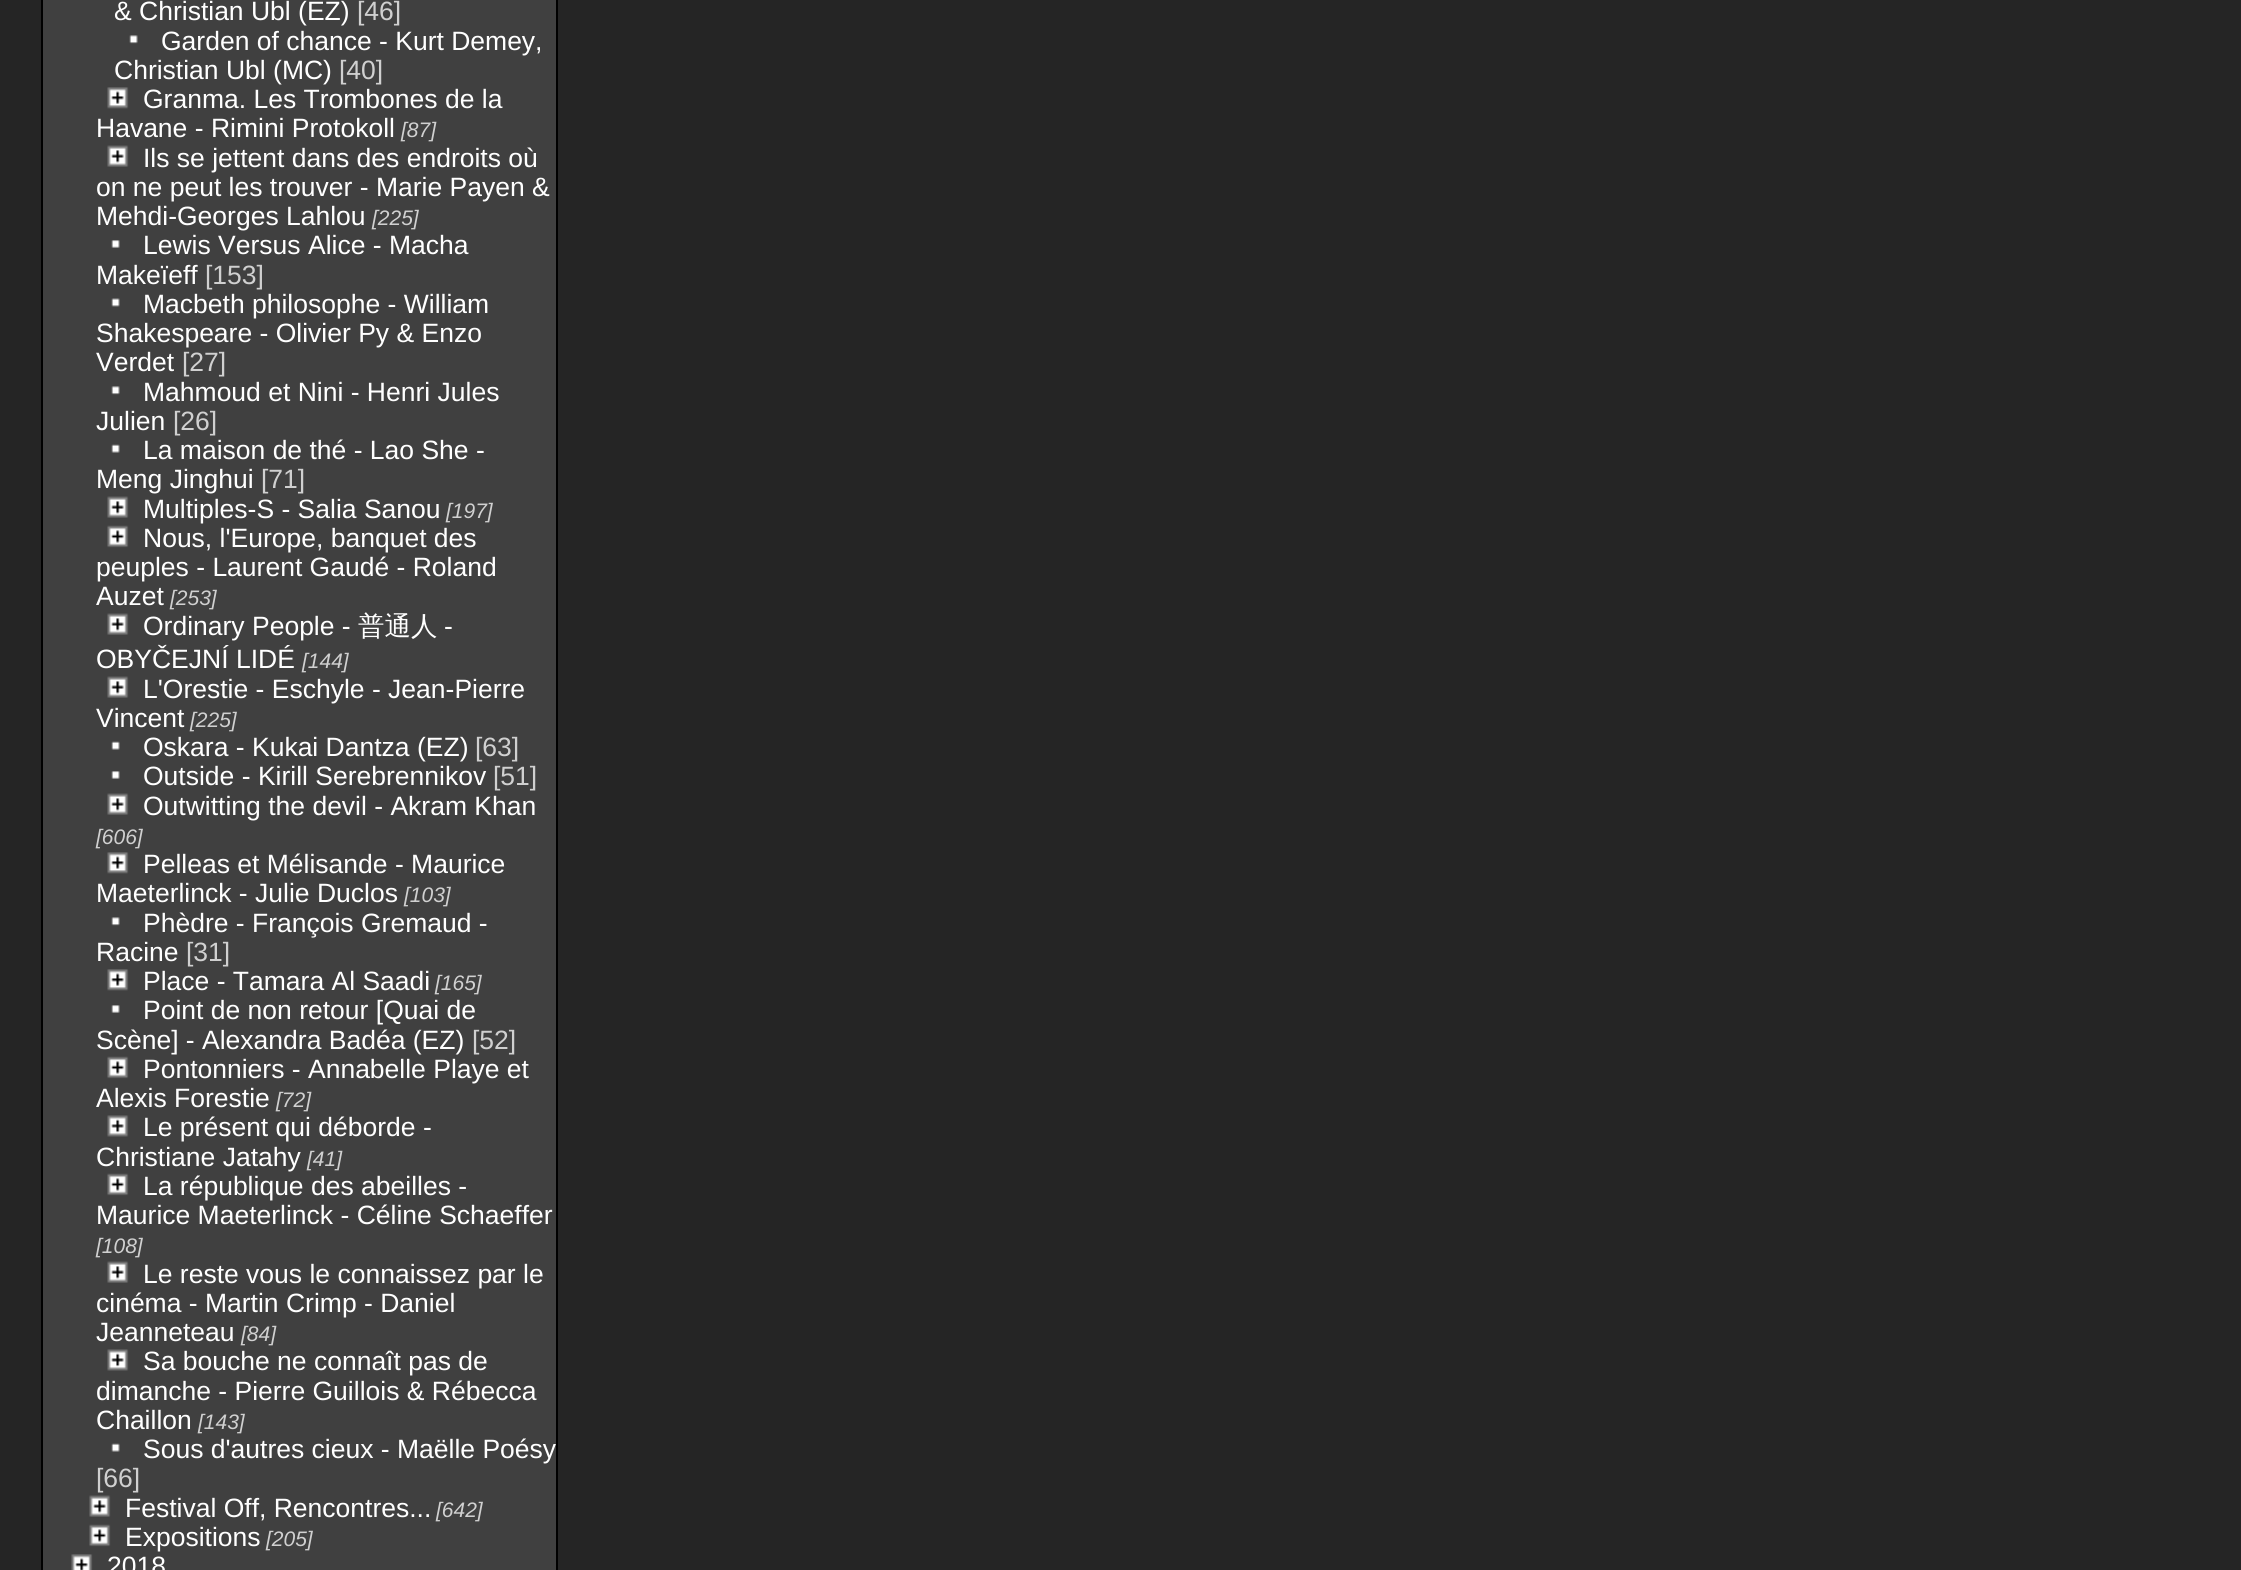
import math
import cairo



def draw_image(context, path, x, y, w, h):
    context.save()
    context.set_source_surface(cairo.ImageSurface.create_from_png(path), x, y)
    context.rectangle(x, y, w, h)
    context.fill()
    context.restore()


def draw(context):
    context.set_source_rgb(37 / 255, 37 / 255, 37 / 255)
    context.paint()
    context.set_source_rgb(64 / 255, 64 / 255, 64 / 255)
    context.rectangle(42, -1, 515, 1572)
    context.fill_preserve()
    context.set_source_rgb(0, 0, 0)
    context.stroke()
    draw_image(context, "images/1.png", 129, 35, 9, 9)
    draw_image(context, "images/2.png", 107, 87, 22, 22)
    draw_image(context, "images/3.png", 107, 145, 22, 22)
    draw_image(context, "images/4.png", 111, 240, 9, 8)
    draw_image(context, "images/5.png", 111, 298, 9, 9)
    draw_image(context, "images/1.png", 111, 386, 9, 9)
    draw_image(context, "images/6.png", 111, 444, 9, 9)
    draw_image(context, "images/3.png", 107, 496, 22, 22)
    draw_image(context, "images/7.png", 107, 525, 22, 23)
    draw_image(context, "images/3.png", 107, 613, 22, 22)
    draw_image(context, "images/3.png", 107, 676, 22, 22)
    draw_image(context, "images/6.png", 111, 741, 9, 9)
    draw_image(context, "images/4.png", 111, 771, 9, 8)
    draw_image(context, "images/3.png", 107, 793, 22, 22)
    draw_image(context, "images/2.png", 107, 852, 22, 22)
    draw_image(context, "images/1.png", 111, 917, 9, 9)
    draw_image(context, "images/2.png", 107, 969, 22, 22)
    draw_image(context, "images/4.png", 111, 1005, 9, 8)
    draw_image(context, "images/7.png", 107, 1056, 22, 23)
    draw_image(context, "images/8.png", 107, 1115, 22, 22)
    draw_image(context, "images/7.png", 107, 1173, 22, 23)
    draw_image(context, "images/3.png", 107, 1261, 22, 22)
    draw_image(context, "images/8.png", 107, 1349, 22, 22)
    draw_image(context, "images/6.png", 111, 1443, 9, 9)
    draw_image(context, "images/3.png", 89, 1495, 22, 22)
    draw_image(context, "images/7.png", 89, 1524, 22, 23)
    draw_image(context, "images/9.png", 71, 1554, 22, 16)
    context.select_font_face("Liberation Sans")
    context.set_font_size(26.5)
    context.set_source_rgb(1, 1, 1)
    context.move_to(114, 20)
    context.show_text("& Christian Ubl (EZ)")
    context.set_source_rgb(208 / 255, 208 / 255, 208 / 255)
    context.move_to(357, 20)
    context.show_text("[46]")
    context.set_source_rgb(1, 1, 1)
    context.move_to(161, 50)
    context.show_text("Garden of chance - Kurt Demey,")
    context.move_to(114, 79)
    context.show_text("Christian Ubl (MC)")
    context.set_source_rgb(208 / 255, 208 / 255, 208 / 255)
    context.move_to(339, 79)
    context.show_text("[40]")
    context.set_source_rgb(1, 1, 1)
    context.move_to(143, 108)
    context.show_text("Granma. Les Trombones de la")
    context.move_to(96, 137)
    context.show_text("Havane - Rimini Protokoll")
    context.select_font_face("Liberation Sans", cairo.FontSlant.ITALIC)
    context.set_font_size(21)
    context.set_source_rgb(208 / 255, 208 / 255, 208 / 255)
    context.move_to(401, 137)
    context.show_text("[87]")
    context.select_font_face("Liberation Sans")
    context.set_font_size(26.5)
    context.set_source_rgb(1, 1, 1)
    context.move_to(143, 167)
    context.show_text("Ils se jettent dans des endroits où")
    context.move_to(96, 196)
    context.show_text("on ne peut les trouver - Marie Payen &")
    context.move_to(96, 225)
    context.show_text("Mehdi-Georges Lahlou")
    context.select_font_face("Liberation Sans", cairo.FontSlant.ITALIC)
    context.set_font_size(21)
    context.set_source_rgb(208 / 255, 208 / 255, 208 / 255)
    context.move_to(372, 225)
    context.show_text("[225]")
    context.select_font_face("Liberation Sans")
    context.set_font_size(26.5)
    context.set_source_rgb(1, 1, 1)
    context.move_to(143, 254)
    context.show_text("Lewis Versus Alice - Macha")
    context.move_to(96, 284)
    context.show_text("Makeïeff")
    context.set_source_rgb(208 / 255, 208 / 255, 208 / 255)
    context.move_to(205, 284)
    context.show_text("[153]")
    context.set_source_rgb(1, 1, 1)
    context.move_to(143, 313)
    context.show_text("Macbeth philosophe - William")
    context.move_to(96, 342)
    context.show_text("Shakespeare - Olivier Py & Enzo")
    context.move_to(96, 371)
    context.show_text("Verdet")
    context.set_source_rgb(208 / 255, 208 / 255, 208 / 255)
    context.move_to(182, 371)
    context.show_text("[27]")
    context.set_source_rgb(1, 1, 1)
    context.move_to(143, 401)
    context.show_text("Mahmoud et Nini - Henri Jules")
    context.move_to(96, 430)
    context.show_text("Julien")
    context.set_source_rgb(208 / 255, 208 / 255, 208 / 255)
    context.move_to(173, 430)
    context.show_text("[26]")
    context.set_source_rgb(1, 1, 1)
    context.move_to(143, 459)
    context.show_text("La maison de thé - Lao She -")
    context.move_to(96, 488)
    context.show_text("Meng Jinghui")
    context.set_source_rgb(208 / 255, 208 / 255, 208 / 255)
    context.move_to(261, 488)
    context.show_text("[71]")
    context.set_source_rgb(1, 1, 1)
    context.move_to(143, 518)
    context.show_text("Multiples-S - Salia Sanou")
    context.select_font_face("Liberation Sans", cairo.FontSlant.ITALIC)
    context.set_font_size(21)
    context.set_source_rgb(208 / 255, 208 / 255, 208 / 255)
    context.move_to(446, 518)
    context.show_text("[197]")
    context.select_font_face("Liberation Sans")
    context.set_font_size(26.5)
    context.set_source_rgb(1, 1, 1)
    context.move_to(143, 547)
    context.show_text("Nous, l'Europe, banquet des")
    context.move_to(96, 576)
    context.show_text("peuples - Laurent Gaudé - Roland")
    context.move_to(96, 605)
    context.show_text("Auzet")
    context.select_font_face("Liberation Sans", cairo.FontSlant.ITALIC)
    context.set_font_size(21)
    context.set_source_rgb(208 / 255, 208 / 255, 208 / 255)
    context.move_to(170, 605)
    context.show_text("[253]")
    context.select_font_face("Liberation Sans")
    context.set_font_size(26.5)
    context.set_source_rgb(1, 1, 1)
    context.move_to(143, 635)
    context.show_text("Ordinary People -")
    context.select_font_face("WenQuanYi Zen Hei Medium")
    context.move_to(358, 635)
    context.show_text("普通人")
    context.select_font_face("Liberation Sans")
    context.move_to(444, 635)
    context.show_text("-")
    context.move_to(96, 668)
    context.show_text("OBYČEJNÍ LIDÉ")
    context.select_font_face("Liberation Sans", cairo.FontSlant.ITALIC)
    context.set_font_size(21)
    context.set_source_rgb(208 / 255, 208 / 255, 208 / 255)
    context.move_to(302, 668)
    context.show_text("[144]")
    context.select_font_face("Liberation Sans")
    context.set_font_size(26.5)
    context.set_source_rgb(1, 1, 1)
    context.move_to(143, 698)
    context.show_text("L'Orestie - Eschyle - Jean-Pierre")
    context.move_to(96, 727)
    context.show_text("Vincent")
    context.select_font_face("Liberation Sans", cairo.FontSlant.ITALIC)
    context.set_font_size(21)
    context.set_source_rgb(208 / 255, 208 / 255, 208 / 255)
    context.move_to(190, 727)
    context.show_text("[225]")
    context.select_font_face("Liberation Sans")
    context.set_font_size(26.5)
    context.set_source_rgb(1, 1, 1)
    context.move_to(143, 756)
    context.show_text("Oskara - Kukai Dantza (EZ)")
    context.set_source_rgb(208 / 255, 208 / 255, 208 / 255)
    context.move_to(475, 756)
    context.show_text("[63]")
    context.set_source_rgb(1, 1, 1)
    context.move_to(143, 785)
    context.show_text("Outside - Kirill Serebrennikov")
    context.set_source_rgb(208 / 255, 208 / 255, 208 / 255)
    context.move_to(493, 785)
    context.show_text("[51]")
    context.set_source_rgb(1, 1, 1)
    context.move_to(143, 815)
    context.show_text("Outwitting the devil - Akram Khan")
    context.select_font_face("Liberation Sans", cairo.FontSlant.ITALIC)
    context.set_font_size(21)
    context.set_source_rgb(208 / 255, 208 / 255, 208 / 255)
    context.move_to(96, 844)
    context.show_text("[606]")
    context.select_font_face("Liberation Sans")
    context.set_font_size(26.5)
    context.set_source_rgb(1, 1, 1)
    context.move_to(143, 873)
    context.show_text("Pelleas et Mélisande - Maurice")
    context.move_to(96, 902)
    context.show_text("Maeterlinck - Julie Duclos")
    context.select_font_face("Liberation Sans", cairo.FontSlant.ITALIC)
    context.set_font_size(21)
    context.set_source_rgb(208 / 255, 208 / 255, 208 / 255)
    context.move_to(404, 902)
    context.show_text("[103]")
    context.select_font_face("Liberation Sans")
    context.set_font_size(26.5)
    context.set_source_rgb(1, 1, 1)
    context.move_to(143, 932)
    context.show_text("Phèdre - François Gremaud -")
    context.move_to(96, 961)
    context.show_text("Racine")
    context.set_source_rgb(208 / 255, 208 / 255, 208 / 255)
    context.move_to(186, 961)
    context.show_text("[31]")
    context.set_source_rgb(1, 1, 1)
    context.move_to(143, 990)
    context.show_text("Place - Tamara Al Saadi")
    context.select_font_face("Liberation Sans", cairo.FontSlant.ITALIC)
    context.set_font_size(21)
    context.set_source_rgb(208 / 255, 208 / 255, 208 / 255)
    context.move_to(435, 990)
    context.show_text("[165]")
    context.select_font_face("Liberation Sans")
    context.set_font_size(26.5)
    context.set_source_rgb(1, 1, 1)
    context.move_to(143, 1019)
    context.show_text("Point de non retour [Quai de")
    context.move_to(96, 1049)
    context.show_text("Scène] - Alexandra Badéa (EZ)")
    context.set_source_rgb(208 / 255, 208 / 255, 208 / 255)
    context.move_to(472, 1049)
    context.show_text("[52]")
    context.set_source_rgb(1, 1, 1)
    context.move_to(143, 1078)
    context.show_text("Pontonniers - Annabelle Playe et")
    context.move_to(96, 1107)
    context.show_text("Alexis Forestie")
    context.select_font_face("Liberation Sans", cairo.FontSlant.ITALIC)
    context.set_font_size(21)
    context.set_source_rgb(208 / 255, 208 / 255, 208 / 255)
    context.move_to(276, 1107)
    context.show_text("[72]")
    context.select_font_face("Liberation Sans")
    context.set_font_size(26.5)
    context.set_source_rgb(1, 1, 1)
    context.move_to(143, 1136)
    context.show_text("Le présent qui déborde -")
    context.move_to(96, 1166)
    context.show_text("Christiane Jatahy")
    context.select_font_face("Liberation Sans", cairo.FontSlant.ITALIC)
    context.set_font_size(21)
    context.set_source_rgb(208 / 255, 208 / 255, 208 / 255)
    context.move_to(307, 1166)
    context.show_text("[41]")
    context.select_font_face("Liberation Sans")
    context.set_font_size(26.5)
    context.set_source_rgb(1, 1, 1)
    context.move_to(143, 1195)
    context.show_text("La république des abeilles -")
    context.move_to(96, 1224)
    context.show_text("Maurice Maeterlinck - Céline Schaeffer")
    context.select_font_face("Liberation Sans", cairo.FontSlant.ITALIC)
    context.set_font_size(21)
    context.set_source_rgb(208 / 255, 208 / 255, 208 / 255)
    context.move_to(96, 1253)
    context.show_text("[108]")
    context.select_font_face("Liberation Sans")
    context.set_font_size(26.5)
    context.set_source_rgb(1, 1, 1)
    context.move_to(143, 1283)
    context.show_text("Le reste vous le connaissez par le")
    context.move_to(96, 1312)
    context.show_text("cinéma - Martin Crimp - Daniel")
    context.move_to(96, 1341)
    context.show_text("Jeanneteau")
    context.select_font_face("Liberation Sans", cairo.FontSlant.ITALIC)
    context.set_font_size(21)
    context.set_source_rgb(208 / 255, 208 / 255, 208 / 255)
    context.move_to(241, 1341)
    context.show_text("[84]")
    context.select_font_face("Liberation Sans")
    context.set_font_size(26.5)
    context.set_source_rgb(1, 1, 1)
    context.move_to(143, 1370)
    context.show_text("Sa bouche ne connaît pas de")
    context.move_to(96, 1400)
    context.show_text("dimanche - Pierre Guillois & Rébecca")
    context.move_to(96, 1429)
    context.show_text("Chaillon")
    context.select_font_face("Liberation Sans", cairo.FontSlant.ITALIC)
    context.set_font_size(21)
    context.set_source_rgb(208 / 255, 208 / 255, 208 / 255)
    context.move_to(198, 1429)
    context.show_text("[143]")
    context.select_font_face("Liberation Sans")
    context.set_font_size(26.5)
    context.set_source_rgb(1, 1, 1)
    context.move_to(143, 1458)
    context.show_text("Sous d'autres cieux - Maëlle Poésy")
    context.set_source_rgb(208 / 255, 208 / 255, 208 / 255)
    context.move_to(96, 1487)
    context.show_text("[66]")
    context.set_source_rgb(1, 1, 1)
    context.move_to(125, 1517)
    context.show_text("Festival Off, Rencontres...")
    context.select_font_face("Liberation Sans", cairo.FontSlant.ITALIC)
    context.set_font_size(21)
    context.set_source_rgb(208 / 255, 208 / 255, 208 / 255)
    context.move_to(436, 1517)
    context.show_text("[642]")
    context.select_font_face("Liberation Sans")
    context.set_font_size(26.5)
    context.set_source_rgb(1, 1, 1)
    context.move_to(125, 1546)
    context.show_text("Expositions")
    context.select_font_face("Liberation Sans", cairo.FontSlant.ITALIC)
    context.set_font_size(21)
    context.set_source_rgb(208 / 255, 208 / 255, 208 / 255)
    context.move_to(266, 1546)
    context.show_text("[205]")
    context.select_font_face("Liberation Sans")
    context.set_font_size(26.5)
    context.set_source_rgb(1, 1, 1)
    context.move_to(107, 1575)
    context.show_text("2018")


surface = cairo.ImageSurface(cairo.Format.RGB24, 2241, 1570)
context = cairo.Context(surface)
options = cairo.FontOptions()
options.set_hint_metrics(cairo.HintMetrics.OFF)
options.set_hint_style(cairo.HintStyle.NONE)
context.set_font_options(options)
context.set_miter_limit(4)
draw(context)
surface.write_to_png("out.png")
